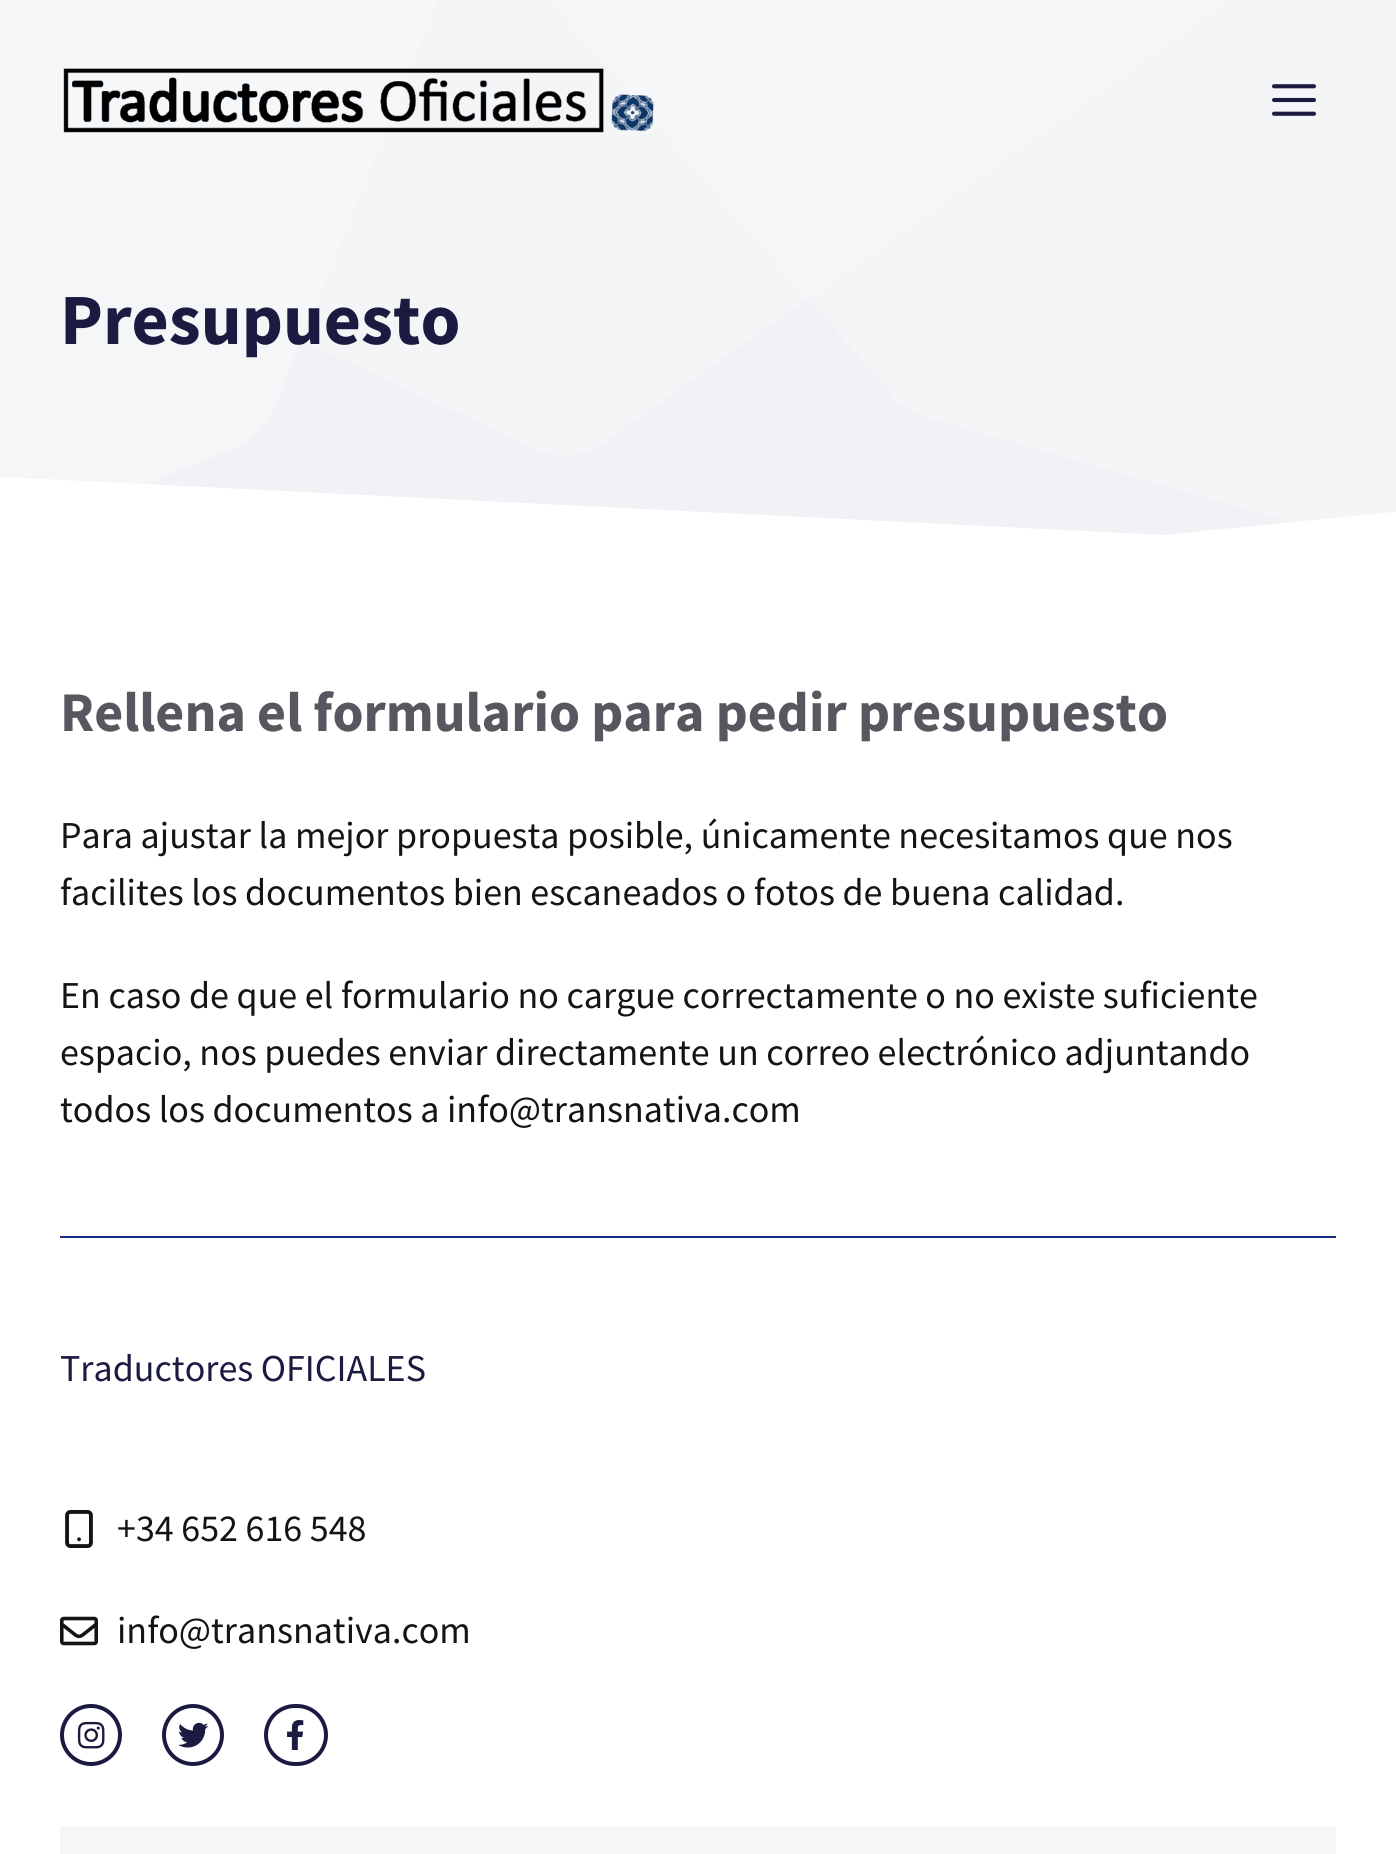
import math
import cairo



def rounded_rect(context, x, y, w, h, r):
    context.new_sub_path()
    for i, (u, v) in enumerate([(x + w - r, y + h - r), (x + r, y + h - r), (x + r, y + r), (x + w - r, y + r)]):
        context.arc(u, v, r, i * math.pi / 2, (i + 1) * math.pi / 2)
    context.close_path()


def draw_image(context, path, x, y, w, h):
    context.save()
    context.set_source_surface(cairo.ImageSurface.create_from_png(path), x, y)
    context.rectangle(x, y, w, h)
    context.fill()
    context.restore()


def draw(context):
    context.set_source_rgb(1, 1, 1)
    context.paint()
    context.set_source_rgb(240 / 255, 242 / 255, 245 / 255)
    context.rectangle(0, 0, 1293, 535)
    context.fill()
    context.set_source_rgb(244 / 255, 245 / 255, 247 / 255)
    context.new_path()
    context.move_to(438, 0)
    context.line_to(301, 340)
    context.line_to(533, 448)
    context.curve_to(556, 459, 584, 457, 605, 442)
    context.line_to(808, 298)
    context.line_to(550, 0)
    context.close_path()
    context.fill()
    context.new_path()
    context.move_to(1228, 0)
    context.line_to(808, 298)
    context.line_to(892, 395)
    context.curve_to(901, 406, 913, 414, 926, 417)
    context.line_to(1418, 559)
    context.line_to(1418, 0)
    context.close_path()
    context.fill()
    context.set_source_rgb(246 / 255, 247 / 255, 249 / 255)
    context.new_path()
    context.move_to(550, 0)
    context.line_to(808, 298)
    context.line_to(1228, 0)
    context.close_path()
    context.fill()
    context.set_source_rgb(245 / 255, 246 / 255, 248 / 255)
    context.new_path()
    context.move_to(-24, 552)
    context.line_to(234, 449)
    context.curve_to(252, 442, 266, 427, 274, 409)
    context.line_to(301, 340)
    context.line_to(-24, 189)
    context.close_path()
    context.fill()
    context.set_source_rgba(1, 1, 1, 0.4)
    context.new_path()
    context.move_to(-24, 0)
    context.line_to(-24, 189)
    context.line_to(301, 340)
    context.line_to(438, 0)
    context.close_path()
    context.fill()
    draw_image(context, "images/1.png", 63, 68, 591, 65)
    draw_image(context, "images/2.png", 1272, 84, 44, 32)
    context.set_source_rgb(1, 1, 1)
    context.new_path()
    context.move_to(-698, 562)
    context.line_to(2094, 562)
    context.line_to(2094, 442)
    context.line_to(1163, 535)
    context.line_to(-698, 442)
    context.close_path()
    context.fill()
    context.set_source_rgb(25 / 255, 43 / 255, 128 / 255)
    context.rectangle(60, 1236, 1276, 2)
    context.fill()
    draw_image(context, "images/3.png", 65, 1510, 28, 38)
    draw_image(context, "images/4.png", 60, 1616, 38, 30)
    context.arc(91, 1735, 29, 0, 2 * math.pi)
    context.set_source_rgb(27 / 255, 27 / 255, 66 / 255)
    context.set_line_width(4)
    context.stroke()
    draw_image(context, "images/5.png", 77, 1721, 28, 28)
    context.arc(193, 1735, 29, 0, 2 * math.pi)
    context.stroke()
    draw_image(context, "images/6.png", 178, 1722, 30, 26)
    rounded_rect(context, 266, 1706, 60, 58, 29)
    context.stroke()
    draw_image(context, "images/7.png", 287, 1720, 17, 30)
    context.set_source_rgb(246 / 255, 246 / 255, 246 / 255)
    context.rectangle(60, 1826, 1276, 28)
    context.fill()
    context.select_font_face("Source Sans Pro", cairo.FontSlant.NORMAL, cairo.FontWeight.BOLD)
    context.set_font_size(72)
    context.set_source_rgb(27 / 255, 27 / 255, 66 / 255)
    context.move_to(60, 344)
    context.show_text("Presupuesto")
    context.set_font_size(56)
    context.set_source_rgb(87 / 255, 87 / 255, 96 / 255)
    context.move_to(60, 731)
    context.show_text("Rellena el formulario para pedir presupuesto")
    context.select_font_face("Source Sans Pro")
    context.set_font_size(38)
    context.set_source_rgb(20 / 255, 20 / 255, 20 / 255)
    context.move_to(60, 848)
    context.show_text("Para ajustar la mejor propuesta posible, únicamente necesitamos que nos")
    context.move_to(60, 905)
    context.show_text("facilites los documentos bien escaneados o fotos de buena calidad.")
    context.move_to(60, 1008)
    context.show_text("En caso de que el formulario no cargue correctamente o no existe suficiente")
    context.move_to(60, 1065)
    context.show_text("espacio, nos puedes enviar directamente un correo electrónico adjuntando")
    context.move_to(60, 1122)
    context.show_text("todos los documentos a info@transnativa.com")
    context.set_source_rgb(27 / 255, 27 / 255, 66 / 255)
    context.move_to(60, 1381)
    context.show_text("Traductores OFICIALES")
    context.set_source_rgb(20 / 255, 20 / 255, 20 / 255)
    context.move_to(117, 1541)
    context.show_text("+34 652 616 548")
    context.move_to(117, 1643)
    context.show_text("info@transnativa.com")


surface = cairo.ImageSurface(cairo.Format.RGB24, 1396, 1854)
context = cairo.Context(surface)
options = cairo.FontOptions()
options.set_hint_metrics(cairo.HintMetrics.OFF)
options.set_hint_style(cairo.HintStyle.NONE)
context.set_font_options(options)
context.set_miter_limit(4)
draw(context)
surface.write_to_png("out.png")
